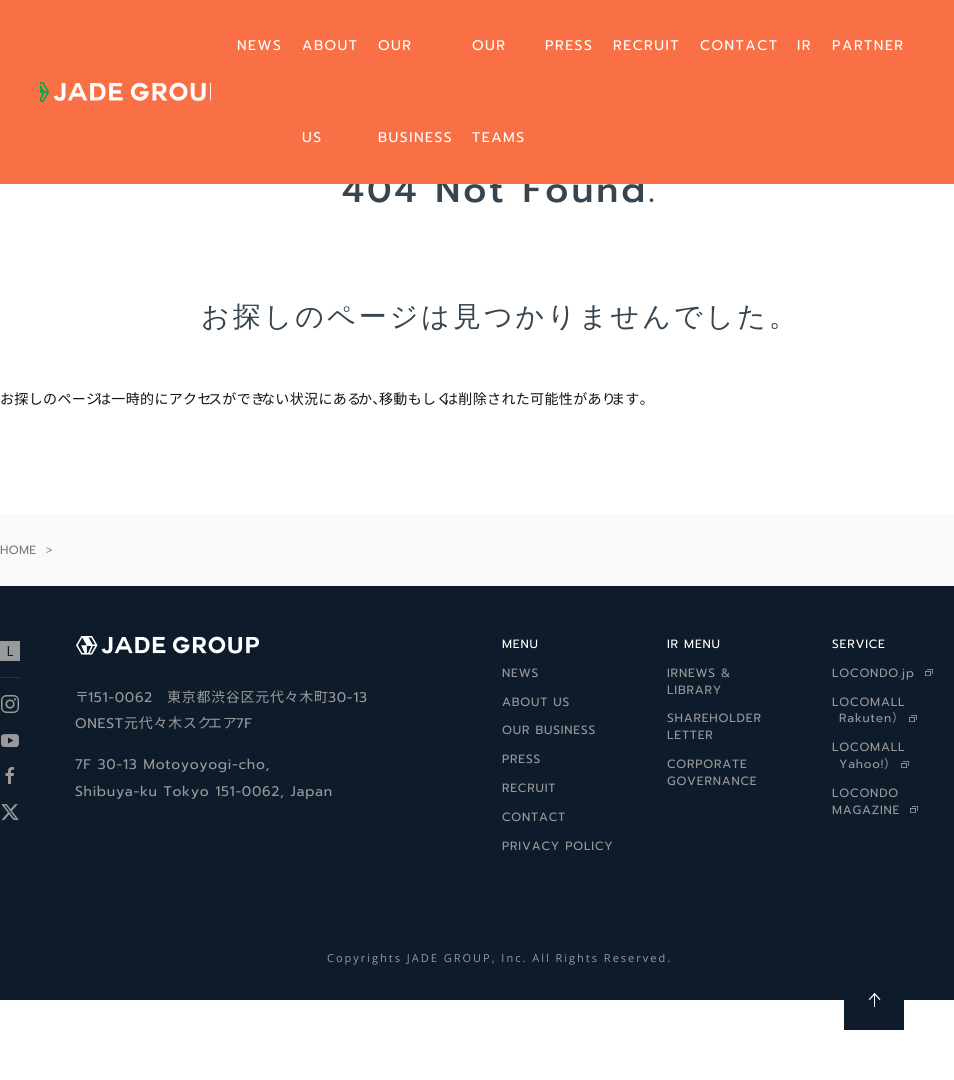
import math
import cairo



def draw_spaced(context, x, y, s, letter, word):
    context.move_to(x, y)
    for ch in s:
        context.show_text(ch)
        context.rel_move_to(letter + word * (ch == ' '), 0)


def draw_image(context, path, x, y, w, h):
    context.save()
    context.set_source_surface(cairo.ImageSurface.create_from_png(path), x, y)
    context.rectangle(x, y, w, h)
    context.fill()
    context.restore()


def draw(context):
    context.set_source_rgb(1, 1, 1)
    context.paint()
    context.set_source_rgb(13 / 255, 27 / 255, 42 / 255)
    context.rectangle(0, 586, 954, 414)
    context.fill()
    context.set_source_rgb(250 / 255, 250 / 255, 250 / 255)
    context.rectangle(0, 514, 954, 72)
    context.fill()
    context.set_source_rgb(37 / 255, 50 / 255, 63 / 255)
    context.rectangle(0, 677, 20, 1)
    context.fill()
    draw_image(context, "images/2.png", 0, 641, 20, 20)
    draw_image(context, "images/3.png", 1, 695, 18, 18)
    draw_image(context, "images/4.png", 1, 734, 18, 14)
    draw_image(context, "images/5.png", 5, 767, 9, 17)
    draw_image(context, "images/6.png", 1, 804, 18, 16)
    draw_image(context, "images/7.png", 76, 636, 183, 19)
    draw_image(context, "images/8.png", 925, 669, 8, 7)
    draw_image(context, "images/8.png", 909, 715, 8, 7)
    draw_image(context, "images/8.png", 901, 761, 8, 7)
    draw_image(context, "images/8.png", 910, 806, 8, 7)
    context.set_source_rgb(13 / 255, 27 / 255, 42 / 255)
    context.rectangle(844, 1000, 60, 30)
    context.fill()
    draw_image(context, "images/9.png", 868, 992, 13, 15)
    context.select_font_face("Prompt Medium")
    context.set_font_size(36)
    context.set_source_rgb(54 / 255, 69 / 255, 79 / 255)
    draw_spaced(context, 342, 202, "404 Not Found.", 3, 0)
    context.set_source_rgb(250 / 255, 112 / 255, 70 / 255)
    context.rectangle(0, 0, 954, 184)
    context.fill()
    context.select_font_face("Prompt")
    context.set_font_size(14)
    context.set_source_rgb(1, 1, 1)
    draw_spaced(context, 832, 50, "PARTNER", 1.5, 0)
    draw_spaced(context, 797, 50, "IR", 1.5, 0)
    draw_spaced(context, 700, 50, "CONTACT", 1.5, 0)
    draw_spaced(context, 613, 50, "RECRUIT", 1.5, 0)
    draw_spaced(context, 545, 50, "PRESS", 1.5, 0)
    draw_spaced(context, 472, 142, "TEAMS", 1.5, 0)
    draw_spaced(context, 472, 50, "OUR", 1.5, 0)
    draw_spaced(context, 378, 142, "BUSINESS", 1.5, 0)
    draw_spaced(context, 378, 50, "OUR", 1.5, 0)
    draw_spaced(context, 302, 142, "US", 1.5, 0)
    draw_spaced(context, 302, 50, "ABOUT", 1.5, 0)
    draw_spaced(context, 237, 50, "NEWS", 1.5, 0)
    draw_image(context, "images/1.png", 40, 82, 171, 20)
    context.select_font_face("WenQuanYi Zen Hei Medium")
    context.set_font_size(28)
    context.set_source_rgb(54 / 255, 69 / 255, 79 / 255)
    draw_spaced(context, 201, 326, "お探しのページは見つかりませんでした。", 3, 0)
    context.select_font_face("Noto Sans JP")
    context.set_font_size(14)
    context.set_source_rgb(17 / 255, 17 / 255, 17 / 255)
    draw_spaced(context, 0, 404, "お探しのページ", 0.35, 0)
    draw_spaced(context, 97, 404, "は一時的にアクセ", 0.35, 0)
    draw_spaced(context, 208, 404, "スができ", 0.35, 0)
    draw_spaced(context, 261, 404, "ない状況にある", 0.35, 0)
    draw_spaced(context, 358, 404, "か、", 0.35, 0)
    draw_spaced(context, 379, 404, "移動もしく", 0.35, 0)
    draw_spaced(context, 444, 404, "は削除された可能性があり", 0.35, 0)
    draw_spaced(context, 611, 404, "ます。", 0.35, 0)
    context.select_font_face("Prompt")
    context.set_font_size(12)
    context.set_source_rgb(122 / 255, 122 / 255, 122 / 255)
    draw_spaced(context, 0, 554, "HOME", 0.35, 0)
    context.set_source_rgb(153 / 255, 153 / 255, 153 / 255)
    draw_spaced(context, 46, 554, ">", 0.35, 0)
    context.select_font_face("Noto Sans JP")
    context.set_font_size(14)
    draw_spaced(context, 75, 702, "〒", 0.7, 0)
    context.select_font_face("Prompt")
    draw_spaced(context, 88, 702, "151-0062", 0.7, 0)
    context.select_font_face("Noto Sans JP")
    draw_spaced(context, 167, 702, "東京都渋谷区元代々木町", 0.7, 0)
    context.select_font_face("Prompt")
    draw_spaced(context, 328, 702, "30-13", 0.7, 0)
    draw_spaced(context, 75, 728, "ONEST", 0.7, 0)
    context.select_font_face("Noto Sans JP")
    draw_spaced(context, 124, 728, "元代々木スク", 0.7, 0)
    draw_spaced(context, 208, 728, "エア", 0.7, 0)
    context.select_font_face("Prompt")
    draw_spaced(context, 236, 728, "7F", 0.7, 0)
    draw_spaced(context, 75, 769, "7F 30-13 Motoyoyogi-cho,", 0.7, 0)
    draw_spaced(context, 75, 796, "Shibuya-ku Tokyo 151-0062, Japan", 0.7, 0)
    context.set_font_size(12)
    context.set_source_rgb(1, 1, 1)
    draw_spaced(context, 502, 648, "MENU", 0.8, 0)
    context.set_source_rgb(153 / 255, 153 / 255, 153 / 255)
    draw_spaced(context, 502, 677, "NEWS", 0.8, 0)
    draw_spaced(context, 502, 706, "ABOUT US", 0.8, 0)
    draw_spaced(context, 502, 734, "OUR BUSINESS", 0.8, 0)
    draw_spaced(context, 502, 763, "PRESS", 0.8, 0)
    draw_spaced(context, 502, 792, "RECRUIT", 0.8, 0)
    draw_spaced(context, 502, 821, "CONTACT", 0.8, 0)
    draw_spaced(context, 502, 850, "PRIVACY POLICY", 0.8, 0)
    context.set_source_rgb(1, 1, 1)
    draw_spaced(context, 667, 648, "IR MENU", 0.8, 0)
    context.set_source_rgb(153 / 255, 153 / 255, 153 / 255)
    draw_spaced(context, 667, 677, "IRNEWS &", 0.8, 0)
    draw_spaced(context, 667, 694, "LIBRARY", 0.8, 0)
    draw_spaced(context, 667, 722, "SHAREHOLDER", 0.8, 0)
    draw_spaced(context, 667, 739, "LETTER", 0.8, 0)
    draw_spaced(context, 667, 768, "CORPORATE", 0.8, 0)
    draw_spaced(context, 667, 785, "GOVERNANCE", 0.8, 0)
    context.set_source_rgb(1, 1, 1)
    draw_spaced(context, 832, 648, "SERVICE", 0.8, 0)
    context.set_source_rgb(153 / 255, 153 / 255, 153 / 255)
    draw_spaced(context, 832, 677, "LOCONDO.jp", 0.8, 0)
    draw_spaced(context, 832, 706, "LOCOMALL", 0.8, 0)
    draw_spaced(context, 839, 722, "Rakuten", 0.8, 0)
    context.select_font_face("Noto Sans JP")
    draw_spaced(context, 892, 722, "）", 0.8, 0)
    context.select_font_face("Prompt")
    draw_spaced(context, 832, 751, "LOCOMALL", 0.8, 0)
    draw_spaced(context, 839, 768, "Yahoo!", 0.8, 0)
    context.select_font_face("Noto Sans JP")
    draw_spaced(context, 884, 768, "）", 0.8, 0)
    context.select_font_face("Prompt")
    draw_spaced(context, 832, 797, "LOCONDO", 0.8, 0)
    draw_spaced(context, 832, 814, "MAGAZINE", 0.8, 0)
    context.select_font_face("Open Sans")
    context.set_font_size(11)
    draw_spaced(context, 327, 962, "Copyrights JADE GROUP, Inc. All Rights Reserved.", 2, 0)


surface = cairo.ImageSurface(cairo.Format.RGB24, 954, 1080)
context = cairo.Context(surface)
options = cairo.FontOptions()
options.set_hint_metrics(cairo.HintMetrics.OFF)
options.set_hint_style(cairo.HintStyle.NONE)
context.set_font_options(options)
context.set_miter_limit(4)
draw(context)
surface.write_to_png("out.png")
